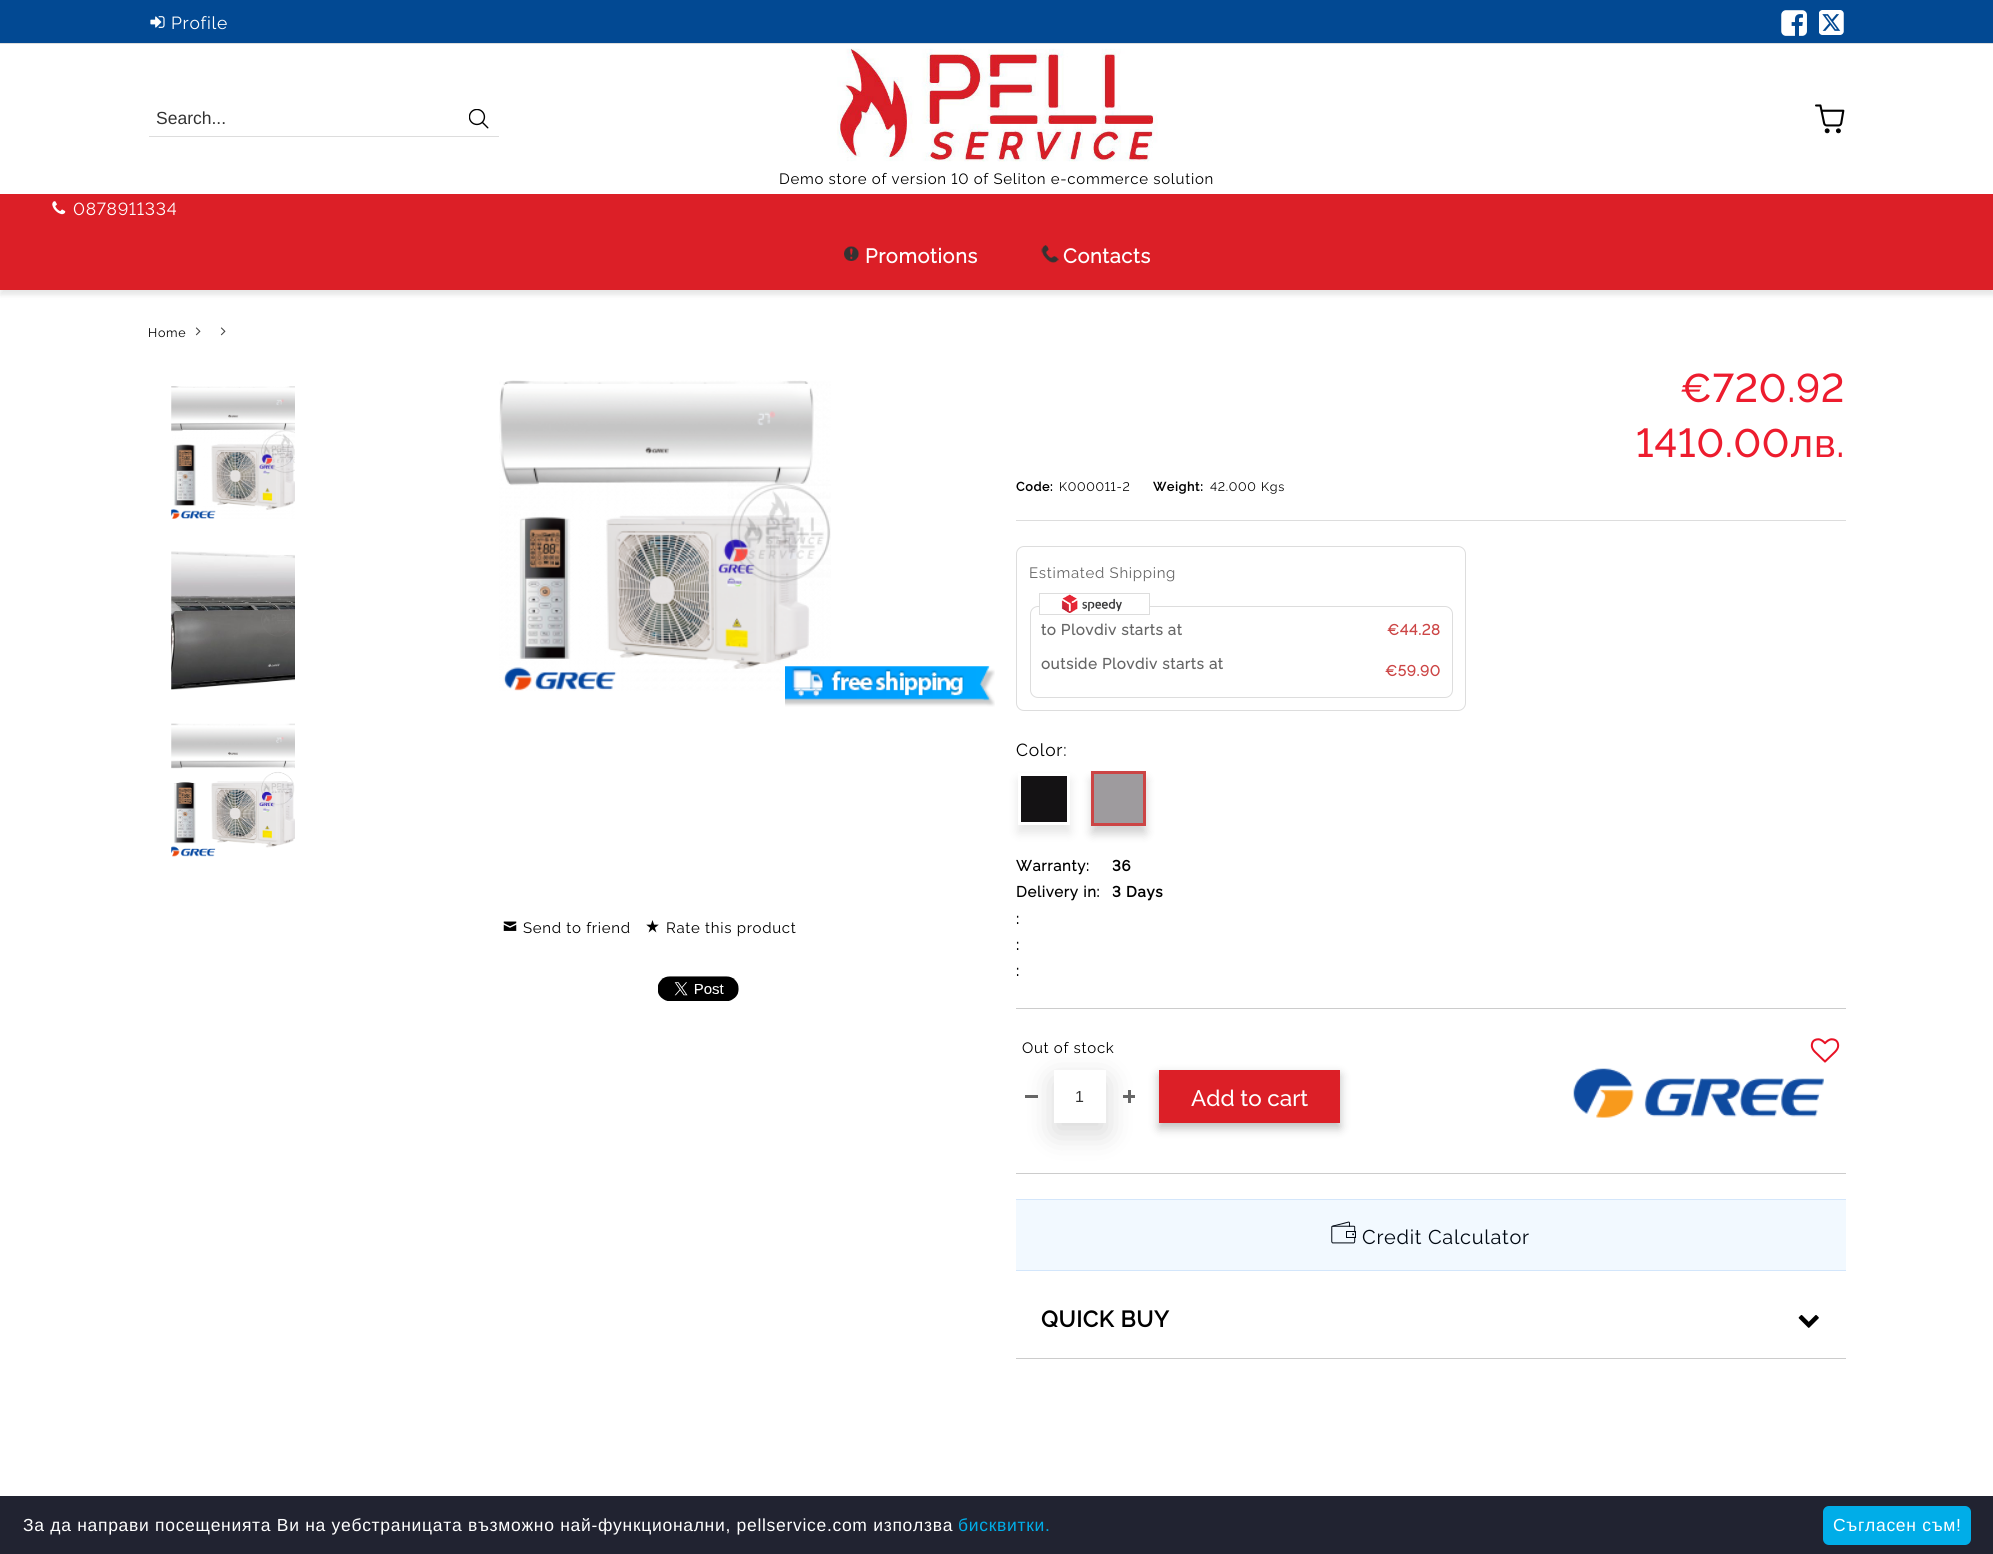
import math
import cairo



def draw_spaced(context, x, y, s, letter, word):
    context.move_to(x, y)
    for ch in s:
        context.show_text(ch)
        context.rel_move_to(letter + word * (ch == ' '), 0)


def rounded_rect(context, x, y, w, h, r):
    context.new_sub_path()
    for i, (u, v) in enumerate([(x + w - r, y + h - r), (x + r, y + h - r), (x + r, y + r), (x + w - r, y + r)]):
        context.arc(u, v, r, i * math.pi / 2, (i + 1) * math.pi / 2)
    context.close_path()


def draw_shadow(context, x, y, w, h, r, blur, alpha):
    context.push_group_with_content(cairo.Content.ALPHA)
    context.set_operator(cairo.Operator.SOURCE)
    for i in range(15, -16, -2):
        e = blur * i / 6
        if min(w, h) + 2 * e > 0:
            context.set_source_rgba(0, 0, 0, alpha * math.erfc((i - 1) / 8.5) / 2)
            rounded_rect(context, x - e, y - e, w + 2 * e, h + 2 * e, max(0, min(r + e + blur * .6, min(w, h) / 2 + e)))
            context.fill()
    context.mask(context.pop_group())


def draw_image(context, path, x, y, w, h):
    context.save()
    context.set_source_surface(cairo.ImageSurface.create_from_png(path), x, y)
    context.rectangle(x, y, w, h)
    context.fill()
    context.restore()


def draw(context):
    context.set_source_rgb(1, 1, 1)
    context.paint()
    context.set_source_rgb(2 / 255, 73 / 255, 147 / 255)
    context.rectangle(0, 0, 1993, 43)
    context.fill()
    context.set_source_rgb(221 / 255, 221 / 255, 221 / 255)
    context.rectangle(0, 43, 1993, 1)
    context.fill()
    draw_image(context, "images/1.png", 150, 16, 15, 12)
    draw_image(context, "images/2.png", 1781, 10, 26, 26)
    draw_image(context, "images/3.png", 1819, 10, 25, 25)
    context.rectangle(149, 136, 350, 1)
    context.fill()
    draw_image(context, "images/4.png", 469, 109, 20, 20)
    draw_image(context, "images/5.png", 1815, 104, 30, 30)
    draw_image(context, "images/6.png", 837, 48, 321, 114)
    context.set_source_rgb(0, 0, 0)
    draw_shadow(context, 0, 199, 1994, 96, 0, 2.5, 0.1)
    context.set_source_rgb(220 / 255, 31 / 255, 39 / 255)
    context.rectangle(0, 194, 1993, 96)
    context.fill()
    draw_image(context, "images/7.png", 52, 201, 14, 14)
    draw_image(context, "images/8.png", 844, 246, 15, 15)
    draw_image(context, "images/9.png", 1041, 245, 18, 18)
    draw_image(context, "images/10.png", 195, 327, 6, 9)
    draw_image(context, "images/10.png", 220, 327, 6, 9)
    draw_image(context, "images/11.png", 171, 386, 124, 133)
    draw_image(context, "images/12.png", 171, 551, 124, 139)
    draw_image(context, "images/13.png", 171, 723, 124, 134)
    draw_image(context, "images/14.png", 499, 380, 332, 311)
    draw_image(context, "images/15.png", 785, 666, 210, 41)
    draw_image(context, "images/16.png", 503, 921, 14, 10)
    draw_image(context, "images/17.png", 646, 920, 13, 13)
    draw_image(context, "images/18.png", 658, 976, 81, 25)
    context.set_source_rgb(221 / 255, 221 / 255, 221 / 255)
    context.rectangle(1016, 520, 830, 1)
    context.fill()
    rounded_rect(context, 1016.5, 546.5, 449, 164, 7.5)
    context.set_line_width(1)
    context.stroke()
    rounded_rect(context, 1030.5, 606.5, 422, 91, 7.5)
    context.stroke()
    context.set_source_rgb(1, 1, 1)
    context.rectangle(1040, 606, 109, 1)
    context.fill()
    context.rectangle(1039.5, 593.5, 110, 21)
    context.set_source_rgb(221 / 255, 221 / 255, 221 / 255)
    context.stroke()
    draw_image(context, "images/19.png", 1061, 594, 61, 19)
    context.set_source_rgb(0, 0, 0)
    draw_shadow(context, 1018, 780, 52, 53, 0, 5, 0.1)
    context.set_source_rgb(20 / 255, 18 / 255, 20 / 255)
    context.rectangle(1019.5, 774.5, 49, 49)
    context.fill_preserve()
    context.set_source_rgb(1, 1, 1)
    context.set_line_width(3)
    context.stroke()
    context.set_source_rgb(0, 0, 0)
    draw_shadow(context, 1091, 779, 55, 55, 0, 5, 0.1)
    draw_shadow(context, 1093, 780, 52, 53, 0, 5, 0.1)
    context.set_source_rgb(158 / 255, 155 / 255, 158 / 255)
    context.rectangle(1092.5, 772.5, 52, 52)
    context.fill_preserve()
    context.set_source_rgb(204 / 255, 69 / 255, 69 / 255)
    context.stroke()
    context.set_source_rgb(204 / 255, 204 / 255, 204 / 255)
    context.rectangle(1016, 1008, 830, 1)
    context.fill()
    draw_image(context, "images/20.png", 1810, 1038, 30, 25)
    context.set_source_rgb(0, 0, 0)
    draw_shadow(context, 1054, 1080, 52, 53, 0, 15, 0.16)
    context.set_source_rgb(102 / 255, 102 / 255, 102 / 255)
    context.rectangle(1025, 1095, 13, 3)
    context.fill()
    context.set_source_rgb(1, 1, 1)
    context.rectangle(1054, 1070, 52, 53)
    context.fill()
    context.set_source_rgb(102 / 255, 102 / 255, 102 / 255)
    context.rectangle(1123, 1095, 12, 3)
    context.fill()
    context.rectangle(1128, 1090, 3, 13)
    context.fill()
    context.set_source_rgb(0, 0, 0)
    draw_shadow(context, 1159, 1075, 181, 53, 0, 5, 0.26)
    context.set_source_rgb(220 / 255, 31 / 255, 39 / 255)
    context.rectangle(1159, 1070, 181, 53)
    context.fill()
    draw_image(context, "images/21.png", 1573, 1068, 251, 50)
    context.set_source_rgb(204 / 255, 204 / 255, 204 / 255)
    context.rectangle(1016, 1173, 830, 1)
    context.fill()
    context.set_source_rgb(242 / 255, 249 / 255, 1)
    context.rectangle(1016, 1200, 830, 70)
    context.fill()
    context.set_source_rgb(211 / 255, 230 / 255, 251 / 255)
    context.rectangle(1016, 1199, 830, 1)
    context.fill()
    context.rectangle(1016, 1270, 830, 1)
    context.fill()
    draw_image(context, "images/22.png", 1331, 1221, 25, 23)
    draw_image(context, "images/23.png", 1798, 1315, 21, 13)
    context.set_source_rgb(204 / 255, 204 / 255, 204 / 255)
    context.rectangle(1016, 1358, 830, 1)
    context.fill()
    context.set_source_rgb(33 / 255, 35 / 255, 49 / 255)
    context.rectangle(0, 1496, 1993, 58)
    context.fill()
    context.set_source_rgb(0, 173 / 255, 232 / 255)
    rounded_rect(context, 1823, 1506, 148, 39, 6)
    context.fill()
    context.select_font_face("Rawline")
    context.set_font_size(17.5)
    context.set_source_rgb(1, 1, 1)
    draw_spaced(context, 171, 29, "Profile", 0.7, 0)
    context.select_font_face("Liberation Sans")
    context.set_source_rgb(51 / 255, 51 / 255, 51 / 255)
    context.move_to(156, 124)
    context.show_text("Search...")
    context.select_font_face("Rawline")
    context.set_font_size(15)
    context.set_source_rgb(0, 0, 0)
    draw_spaced(context, 779, 184, "Demo store of version 10 of Seliton e-commerce solution", 0.7, 0)
    context.set_font_size(17.5)
    context.set_source_rgb(1, 1, 1)
    draw_spaced(context, 73, 215, "0878911334", 0.7, 0)
    context.select_font_face("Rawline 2", cairo.FontSlant.NORMAL, cairo.FontWeight.BOLD)
    context.set_font_size(20)
    draw_spaced(context, 865, 263, "Promotions", 0.7, 0)
    draw_spaced(context, 1063, 263, "Contacts", 0.7, 0)
    context.select_font_face("Rawline")
    context.set_font_size(12.5)
    context.set_source_rgb(0, 0, 0)
    draw_spaced(context, 148, 337, "Home", 0.7, 0)
    context.set_font_size(15)
    draw_spaced(context, 523, 933, "Send to friend", 0.7, 0)
    draw_spaced(context, 666, 933, "Rate this product", 0.7, 0)
    context.select_font_face("Rawline Medium")
    context.set_font_size(40)
    context.set_source_rgb(237 / 255, 28 / 255, 46 / 255)
    draw_spaced(context, 1680, 402, "€720.92", 0.7, 0)
    draw_spaced(context, 1636, 457, "1410.00лв.", 0.7, 0)
    context.select_font_face("Rawline", cairo.FontSlant.NORMAL, cairo.FontWeight.BOLD)
    context.set_font_size(12.5)
    context.set_source_rgb(0, 0, 0)
    draw_spaced(context, 1016, 491, "Code:", 0.7, 0)
    context.select_font_face("Rawline")
    draw_spaced(context, 1059, 491, "K000011-2", 0.7, 0)
    context.select_font_face("Rawline", cairo.FontSlant.NORMAL, cairo.FontWeight.BOLD)
    draw_spaced(context, 1153, 491, "Weight:", 0.7, 0)
    context.select_font_face("Rawline")
    draw_spaced(context, 1210, 491, "42.000", 0.7, 0)
    draw_spaced(context, 1261, 491, "Kgs", 0.7, 0)
    context.set_font_size(15)
    context.set_source_rgb(102 / 255, 102 / 255, 102 / 255)
    draw_spaced(context, 1029, 578, "Estimated Shipping", 0.7, 0)
    context.select_font_face("Rawline 2", cairo.FontSlant.NORMAL, cairo.FontWeight.BOLD)
    draw_spaced(context, 1041, 635, "to Plovdiv starts at", 0.7, 0)
    context.set_source_rgb(204 / 255, 69 / 255, 69 / 255)
    draw_spaced(context, 1387, 635, "€44.28", 0.7, 0)
    context.set_source_rgb(102 / 255, 102 / 255, 102 / 255)
    draw_spaced(context, 1041, 669, "outside Plovdiv starts at", 0.7, 0)
    context.set_source_rgb(204 / 255, 69 / 255, 69 / 255)
    draw_spaced(context, 1385, 676, "€59.90", 0.7, 0)
    context.select_font_face("Rawline")
    context.set_font_size(17.5)
    context.set_source_rgb(0, 0, 0)
    draw_spaced(context, 1016, 756, "Color:", 0.7, 0)
    context.select_font_face("Rawline 2", cairo.FontSlant.NORMAL, cairo.FontWeight.BOLD)
    context.set_font_size(15)
    draw_spaced(context, 1016, 871, "Warranty:", 0.7, 0)
    context.select_font_face("Rawline", cairo.FontSlant.NORMAL, cairo.FontWeight.BOLD)
    draw_spaced(context, 1112, 871, "36", 0.7, 0)
    context.select_font_face("Rawline 2", cairo.FontSlant.NORMAL, cairo.FontWeight.BOLD)
    draw_spaced(context, 1016, 897, "Delivery in:", 0.7, 0)
    context.select_font_face("Rawline", cairo.FontSlant.NORMAL, cairo.FontWeight.BOLD)
    draw_spaced(context, 1112, 897, "3 Days", 0.7, 0)
    context.select_font_face("Rawline 2", cairo.FontSlant.NORMAL, cairo.FontWeight.BOLD)
    draw_spaced(context, 1016, 924, ":", 0.7, 0)
    draw_spaced(context, 1016, 950, ":", 0.7, 0)
    draw_spaced(context, 1016, 976, ":", 0.7, 0)
    context.select_font_face("Rawline")
    draw_spaced(context, 1022, 1053, "Out of stock", 0.7, 0)
    context.select_font_face("Liberation Sans")
    context.set_font_size(16)
    context.set_source_rgb(51 / 255, 51 / 255, 51 / 255)
    context.move_to(1075, 1102)
    context.show_text("1")
    context.select_font_face("Rawline Medium")
    context.set_font_size(22.5)
    context.set_source_rgb(1, 1, 1)
    context.move_to(1191, 1106)
    context.show_text("Add to cart")
    context.select_font_face("Rawline")
    context.set_font_size(20)
    context.set_source_rgb(0, 8 / 255, 18 / 255)
    draw_spaced(context, 1362, 1244, "Credit Calculator", 0.7, 0)
    context.select_font_face("Rawline", cairo.FontSlant.NORMAL, cairo.FontWeight.BOLD)
    context.set_font_size(22.5)
    context.set_source_rgb(0, 0, 0)
    draw_spaced(context, 1041, 1327, "QUICK BUY", 0.7, 0)
    context.select_font_face("Liberation Sans")
    context.set_font_size(17.5)
    context.set_source_rgb(1, 1, 1)
    draw_spaced(context, 23, 1531, "За да направи посещенията Ви на уебстраницата възможно най-функционални, pellservice.com използва", 0.7, 0)
    context.set_source_rgb(0, 173 / 255, 232 / 255)
    draw_spaced(context, 958, 1531, "бисквитки.", 0.7, 0)
    context.set_source_rgb(1, 1, 1)
    draw_spaced(context, 1833, 1531, "Съгласен съм!", 0.7, 0)


surface = cairo.ImageSurface(cairo.Format.RGB24, 1993, 1554)
context = cairo.Context(surface)
options = cairo.FontOptions()
options.set_hint_metrics(cairo.HintMetrics.OFF)
options.set_hint_style(cairo.HintStyle.NONE)
context.set_font_options(options)
context.set_miter_limit(4)
draw(context)
surface.write_to_png("out.png")
